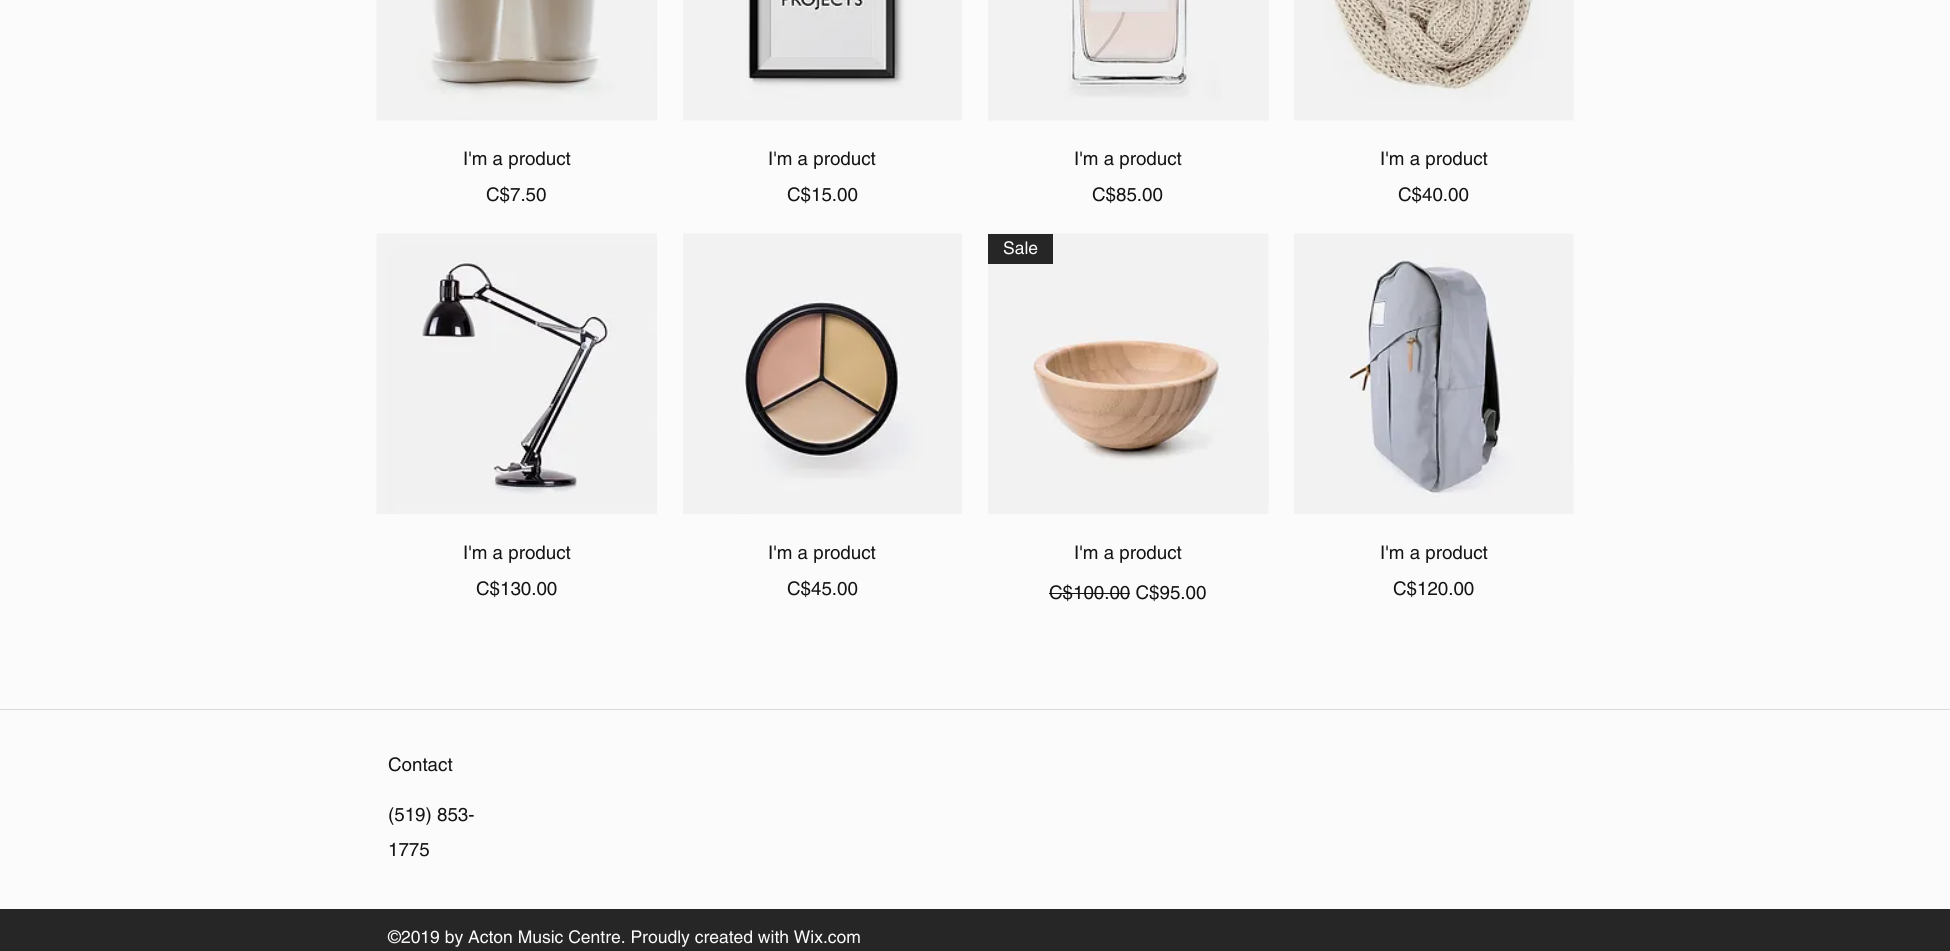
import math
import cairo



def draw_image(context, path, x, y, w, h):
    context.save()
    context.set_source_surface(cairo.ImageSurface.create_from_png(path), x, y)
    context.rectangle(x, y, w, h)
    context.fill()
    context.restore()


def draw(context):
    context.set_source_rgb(251 / 255, 251 / 255, 251 / 255)
    context.paint()
    draw_image(context, "images/1.png", 376, 0, 281, 121)
    draw_image(context, "images/2.png", 683, 0, 279, 121)
    draw_image(context, "images/3.png", 988, 0, 281, 121)
    draw_image(context, "images/4.png", 1294, 0, 280, 121)
    draw_image(context, "images/5.png", 376, 233, 281, 281)
    draw_image(context, "images/6.png", 683, 233, 279, 281)
    draw_image(context, "images/7.png", 988, 233, 281, 281)
    context.set_source_rgb(38 / 255, 38 / 255, 38 / 255)
    context.rectangle(988, 234, 65, 30)
    context.fill()
    context.set_source_rgb(20 / 255, 20 / 255, 20 / 255)
    context.rectangle(1049, 593, 81, 1)
    context.fill()
    draw_image(context, "images/8.png", 1294, 233, 280, 281)
    context.set_source_rgb(216 / 255, 216 / 255, 216 / 255)
    context.rectangle(0, 709, 1950, 1)
    context.fill()
    context.set_source_rgb(38 / 255, 38 / 255, 38 / 255)
    context.rectangle(0, 909, 1950, 42)
    context.fill()
    context.select_font_face("helvetica")
    context.set_font_size(18.75)
    context.set_source_rgb(20 / 255, 20 / 255, 20 / 255)
    context.move_to(463, 165)
    context.show_text("I'm a product")
    context.move_to(486, 201)
    context.show_text("C$7.50")
    context.move_to(768, 165)
    context.show_text("I'm a product")
    context.move_to(787, 201)
    context.show_text("C$15.00")
    context.move_to(1074, 165)
    context.show_text("I'm a product")
    context.move_to(1092, 201)
    context.show_text("C$85.00")
    context.move_to(1380, 165)
    context.show_text("I'm a product")
    context.move_to(1398, 201)
    context.show_text("C$40.00")
    context.move_to(463, 559)
    context.show_text("I'm a product")
    context.move_to(476, 595)
    context.show_text("C$130.00")
    context.move_to(768, 559)
    context.show_text("I'm a product")
    context.move_to(787, 595)
    context.show_text("C$45.00")
    context.set_font_size(17.5)
    context.set_source_rgb(251 / 255, 251 / 255, 251 / 255)
    context.move_to(1003, 254)
    context.show_text("Sale")
    context.set_font_size(18.75)
    context.set_source_rgb(20 / 255, 20 / 255, 20 / 255)
    context.move_to(1074, 559)
    context.show_text("I'm a product")
    context.move_to(1049, 599)
    context.show_text("C$100.00 C$95.00")
    context.move_to(1380, 559)
    context.show_text("I'm a product")
    context.move_to(1393, 595)
    context.show_text("C$120.00")
    context.move_to(388, 771)
    context.show_text("Contact")
    context.move_to(388, 821)
    context.show_text("(519) 853-")
    context.move_to(388, 856)
    context.show_text("1775")
    context.set_font_size(17.5)
    context.set_source_rgb(251 / 255, 251 / 255, 251 / 255)
    context.move_to(388, 943)
    context.show_text("©2019 by Acton Music Centre. Proudly created with Wix.com")


surface = cairo.ImageSurface(cairo.Format.RGB24, 1950, 951)
context = cairo.Context(surface)
options = cairo.FontOptions()
options.set_hint_metrics(cairo.HintMetrics.OFF)
options.set_hint_style(cairo.HintStyle.NONE)
context.set_font_options(options)
context.set_miter_limit(4)
draw(context)
surface.write_to_png("out.png")
